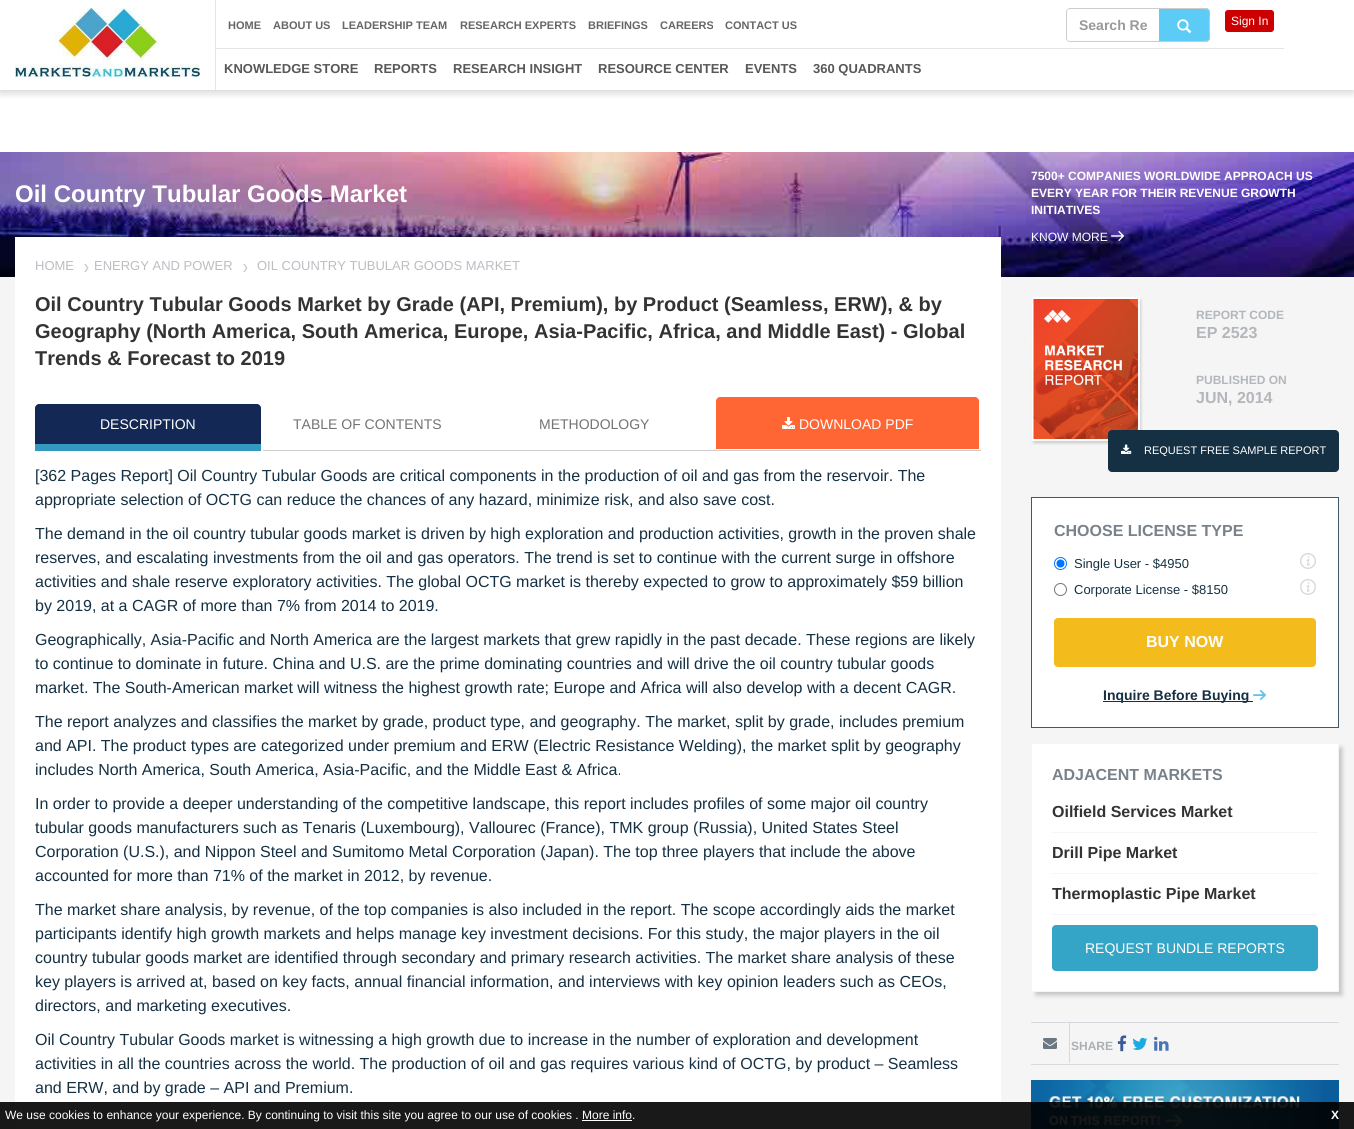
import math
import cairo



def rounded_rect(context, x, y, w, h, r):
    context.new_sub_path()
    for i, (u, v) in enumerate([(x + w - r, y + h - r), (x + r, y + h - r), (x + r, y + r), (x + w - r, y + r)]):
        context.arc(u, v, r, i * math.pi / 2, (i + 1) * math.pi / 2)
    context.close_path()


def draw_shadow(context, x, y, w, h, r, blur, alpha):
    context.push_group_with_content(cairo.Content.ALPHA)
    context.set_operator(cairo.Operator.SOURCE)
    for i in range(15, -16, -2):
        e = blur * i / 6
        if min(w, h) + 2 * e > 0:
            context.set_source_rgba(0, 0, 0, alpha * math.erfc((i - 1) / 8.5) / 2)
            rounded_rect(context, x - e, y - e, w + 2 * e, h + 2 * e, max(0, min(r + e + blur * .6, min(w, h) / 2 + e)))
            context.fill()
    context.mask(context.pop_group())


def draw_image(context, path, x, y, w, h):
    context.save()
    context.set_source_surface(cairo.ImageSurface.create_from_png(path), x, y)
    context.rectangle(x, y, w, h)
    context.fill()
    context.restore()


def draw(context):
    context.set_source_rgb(1, 1, 1)
    context.paint()
    context.save()
    context.rectangle(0, 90, 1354, 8)
    context.clip()
    context.set_source_rgb(0, 0, 0)
    draw_shadow(context, 0, 2, 1354, 90, 0, 5, 0.2)
    context.restore()
    context.set_source_rgb(229 / 255, 229 / 255, 229 / 255)
    context.rectangle(215, 0, 1, 90)
    context.fill()
    draw_image(context, "images/1.png", 15, 8, 185, 69)
    context.rectangle(216, 48, 1068, 1)
    context.fill()
    context.set_source_rgb(204 / 255, 204 / 255, 204 / 255)
    context.set_fill_rule(cairo.FillRule.EVEN_ODD)
    context.new_path()
    context.move_to(1070, 8)
    context.line_to(1159, 8)
    context.line_to(1159, 42)
    context.line_to(1070, 42)
    context.curve_to(1068, 42, 1066, 40, 1066, 38)
    context.line_to(1066, 12)
    context.curve_to(1066, 10, 1068, 8, 1070, 8)
    context.close_path()
    context.move_to(1070, 9)
    context.line_to(1159, 9)
    context.line_to(1159, 41)
    context.line_to(1070, 41)
    context.curve_to(1068, 41, 1067, 40, 1067, 38)
    context.line_to(1067, 12)
    context.curve_to(1067, 10, 1068, 9, 1070, 9)
    context.close_path()
    context.fill()
    context.set_source_rgb(92 / 255, 203 / 255, 245 / 255)
    context.new_path()
    context.move_to(1159, 8)
    context.line_to(1206, 8)
    context.curve_to(1208, 8, 1210, 10, 1210, 12)
    context.line_to(1210, 38)
    context.curve_to(1210, 40, 1208, 42, 1206, 42)
    context.line_to(1159, 42)
    context.close_path()
    context.fill()
    context.set_source_rgb(204 / 255, 204 / 255, 204 / 255)
    context.new_path()
    context.move_to(1159, 8)
    context.line_to(1206, 8)
    context.curve_to(1208, 8, 1210, 10, 1210, 12)
    context.line_to(1210, 38)
    context.curve_to(1210, 40, 1208, 42, 1206, 42)
    context.line_to(1159, 42)
    context.close_path()
    context.move_to(1159, 9)
    context.line_to(1198, 9)
    context.curve_to(1213, 9, 1209, 9, 1209, 25)
    context.curve_to(1209, 41, 1213, 41, 1198, 41)
    context.line_to(1159, 41)
    context.close_path()
    context.fill()
    draw_image(context, "images/2.png", 1177, 19, 15, 15)
    context.set_source_rgb(204 / 255, 0, 0)
    rounded_rect(context, 1225.5, 10.5, 48, 21, 2.5)
    context.fill_preserve()
    context.set_line_width(1)
    context.stroke()
    draw_image(context, "images/3.png", 0, 152, 1354, 125)
    draw_image(context, "images/4.png", 1111, 231, 13, 10)
    context.set_source_rgb(245 / 255, 245 / 255, 245 / 255)
    context.rectangle(0, 277, 1354, 852)
    context.fill()
    context.set_source_rgb(1, 1, 1)
    context.rectangle(15, 237, 986, 892)
    context.fill()
    context.set_source_rgb(20 / 255, 40 / 255, 85 / 255)
    context.new_path()
    context.move_to(39, 404)
    context.line_to(257, 404)
    context.curve_to(259, 404, 261, 406, 261, 408)
    context.line_to(261, 451)
    context.line_to(35, 451)
    context.line_to(35, 408)
    context.curve_to(35, 406, 37, 404, 39, 404)
    context.close_path()
    context.fill()
    context.set_source_rgb(53 / 255, 152 / 255, 191 / 255)
    context.rectangle(35, 444, 226, 7)
    context.fill()
    context.set_source_rgb(204 / 255, 204 / 255, 204 / 255)
    context.rectangle(263, 450, 718, 1)
    context.fill()
    context.set_source_rgb(1, 102 / 255, 51 / 255)
    context.new_path()
    context.move_to(720, 397)
    context.line_to(975, 397)
    context.curve_to(977, 397, 979, 399, 979, 401)
    context.line_to(979, 449)
    context.line_to(716, 449)
    context.line_to(716, 401)
    context.curve_to(716, 399, 718, 397, 720, 397)
    context.close_path()
    context.fill()
    draw_image(context, "images/5.png", 782, 417, 13, 12)
    draw_image(context, "images/6.png", 1031, 297, 112, 148)
    context.set_source_rgb(21 / 255, 48 / 255, 67 / 255)
    rounded_rect(context, 1108.5, 430.5, 230, 41, 3.5)
    context.fill_preserve()
    context.stroke()
    draw_image(context, "images/7.png", 1121, 444, 11, 10)
    context.set_source_rgb(1, 1, 1)
    context.rectangle(1031.5, 497.5, 307, 230)
    context.fill_preserve()
    context.set_source_rgb(66 / 255, 87 / 255, 103 / 255)
    context.stroke()
    context.arc(1060.5, 563.5, 6, 0, 2 * math.pi)
    context.set_source_rgb(0, 117 / 255, 1)
    context.stroke()
    context.arc(1060.5, 563.5, 4, 0, 2 * math.pi)
    context.fill()
    draw_image(context, "images/8.png", 1300, 553, 16, 16)
    context.arc(1060.5, 589.5, 6, 0, 2 * math.pi)
    context.set_source_rgb(118 / 255, 118 / 255, 118 / 255)
    context.stroke()
    draw_image(context, "images/8.png", 1300, 579, 16, 16)
    context.set_source_rgb(243 / 255, 187 / 255, 28 / 255)
    rounded_rect(context, 1054.5, 618.5, 261, 48, 3.5)
    context.fill_preserve()
    context.stroke()
    context.set_source_rgb(21 / 255, 48 / 255, 67 / 255)
    context.rectangle(1103, 701, 150, 1)
    context.fill()
    draw_image(context, "images/9.png", 1253, 690, 13, 10)
    context.set_source_rgb(0, 0, 0)
    draw_shadow(context, 1036, 748, 306, 247, 0, 2.5, 0.22)
    context.set_source_rgb(1, 1, 1)
    context.rectangle(1031.5, 743.5, 307, 248)
    context.fill_preserve()
    context.set_source_rgb(245 / 255, 245 / 255, 245 / 255)
    context.stroke()
    context.rectangle(1052, 832, 266, 1)
    context.fill()
    context.rectangle(1052, 873, 266, 1)
    context.fill()
    context.rectangle(1052, 914, 266, 1)
    context.fill()
    context.set_source_rgb(52 / 255, 165 / 255, 198 / 255)
    rounded_rect(context, 1052.5, 925.5, 265, 45, 3.5)
    context.fill_preserve()
    context.stroke()
    context.set_source_rgb(214 / 255, 217 / 255, 221 / 255)
    context.rectangle(1031, 1022, 308, 1)
    context.fill()
    context.rectangle(1031, 1064, 308, 1)
    context.fill()
    context.rectangle(1069, 1023, 1, 40)
    context.fill()
    draw_image(context, "images/10.png", 1043, 1038, 14, 11)
    draw_image(context, "images/11.png", 1117, 1035, 10, 17)
    draw_image(context, "images/12.png", 1132, 1037, 16, 13)
    draw_image(context, "images/13.png", 1154, 1036, 15, 15)
    context.set_source_rgb(11 / 255, 92 / 255, 154 / 255)
    context.rectangle(1321, 1080, 18, 49)
    context.fill()
    draw_image(context, "images/14.png", 1031, 1080, 290, 49)
    context.set_source_rgba(0, 0, 0, 0.9)
    context.rectangle(0, 1102, 1354, 27)
    context.fill()
    context.set_source_rgb(1, 1, 1)
    context.rectangle(582, 1120, 50, 1)
    context.fill()
    context.select_font_face("Liberation Sans", cairo.FontSlant.NORMAL, cairo.FontWeight.BOLD)
    context.set_font_size(11)
    context.set_source_rgb(102 / 255, 102 / 255, 102 / 255)
    context.move_to(228, 29)
    context.show_text("HOME")
    context.move_to(273, 29)
    context.show_text("ABOUT US")
    context.move_to(342, 29)
    context.show_text("LEADERSHIP TEAM")
    context.move_to(460, 29)
    context.show_text("RESEARCH EXPERTS")
    context.move_to(588, 29)
    context.show_text("BRIEFINGS")
    context.move_to(660, 29)
    context.show_text("CAREERS")
    context.move_to(725, 29)
    context.show_text("CONTACT US")
    context.set_font_size(14)
    context.set_source_rgb(153 / 255, 153 / 255, 153 / 255)
    context.move_to(1079, 30)
    context.show_text("Search Re")
    context.select_font_face("Liberation Sans")
    context.set_font_size(12)
    context.set_source_rgb(1, 1, 1)
    context.move_to(1231, 25)
    context.show_text("Sign In")
    context.select_font_face("Liberation Sans", cairo.FontSlant.NORMAL, cairo.FontWeight.BOLD)
    context.set_font_size(13)
    context.set_source_rgb(88 / 255, 88 / 255, 88 / 255)
    context.move_to(224, 73)
    context.show_text("KNOWLEDGE STORE")
    context.move_to(374, 73)
    context.show_text("REPORTS")
    context.move_to(453, 73)
    context.show_text("RESEARCH INSIGHT")
    context.move_to(598, 73)
    context.show_text("RESOURCE CENTER")
    context.move_to(745, 73)
    context.show_text("EVENTS")
    context.move_to(813, 73)
    context.show_text("360 QUADRANTS")
    context.set_font_size(24)
    context.set_source_rgb(1, 1, 1)
    context.move_to(15, 202)
    context.show_text("Oil Country Tubular Goods Market")
    context.set_font_size(12)
    context.move_to(1031, 180)
    context.show_text("7500+ COMPANIES WORLDWIDE APPROACH US")
    context.move_to(1031, 197)
    context.show_text("EVERY YEAR FOR THEIR REVENUE GROWTH")
    context.move_to(1031, 214)
    context.show_text("INITIATIVES")
    context.select_font_face("Liberation Sans")
    context.move_to(1031, 241)
    context.show_text("KNOW MORE")
    context.set_font_size(13)
    context.set_source_rgb(186 / 255, 190 / 255, 194 / 255)
    context.move_to(35, 270)
    context.show_text("HOME")
    context.select_font_face("DejaVu Sans")
    context.set_font_size(8)
    context.set_source_rgb(204 / 255, 204 / 255, 204 / 255)
    context.move_to(83, 270)
    context.show_text("❯")
    context.select_font_face("Liberation Sans")
    context.set_font_size(13)
    context.set_source_rgb(186 / 255, 190 / 255, 194 / 255)
    context.move_to(94, 270)
    context.show_text("ENERGY AND POWER")
    context.select_font_face("DejaVu Sans")
    context.set_font_size(8)
    context.set_source_rgb(204 / 255, 204 / 255, 204 / 255)
    context.move_to(242, 270)
    context.show_text("❯")
    context.select_font_face("Liberation Sans")
    context.set_font_size(13)
    context.set_source_rgb(186 / 255, 190 / 255, 194 / 255)
    context.move_to(257, 270)
    context.show_text("OIL COUNTRY TUBULAR GOODS MARKET")
    context.select_font_face("Liberation Sans", cairo.FontSlant.NORMAL, cairo.FontWeight.BOLD)
    context.set_font_size(20)
    context.set_source_rgb(51 / 255, 51 / 255, 51 / 255)
    context.move_to(35, 311)
    context.show_text("Oil Country Tubular Goods Market by Grade (API, Premium), by Product (Seamless, ERW), & by")
    context.move_to(35, 338)
    context.show_text("Geography (North America, South America, Europe, Asia-Pacific, Africa, and Middle East) - Global")
    context.move_to(35, 365)
    context.show_text("Trends & Forecast to 2019")
    context.select_font_face("Liberation Sans")
    context.set_font_size(14)
    context.set_source_rgb(1, 1, 1)
    context.move_to(100, 429)
    context.show_text("DESCRIPTION")
    context.set_source_rgb(115 / 255, 115 / 255, 115 / 255)
    context.move_to(293, 429)
    context.show_text("TABLE OF CONTENTS")
    context.move_to(539, 429)
    context.show_text("METHODOLOGY")
    context.set_source_rgb(1, 1, 1)
    context.move_to(799, 429)
    context.show_text("DOWNLOAD PDF")
    context.set_font_size(16)
    context.set_source_rgb(21 / 255, 48 / 255, 67 / 255)
    context.move_to(35, 481)
    context.show_text("[362 Pages Report] Oil Country Tubular Goods are critical components in the production of oil and gas from the reservoir. The")
    context.move_to(35, 505)
    context.show_text("appropriate selection of OCTG can reduce the chances of any hazard, minimize risk, and also save cost.")
    context.move_to(35, 539)
    context.show_text("The demand in the oil country tubular goods market is driven by high exploration and production activities, growth in the proven shale")
    context.move_to(35, 563)
    context.show_text("reserves, and escalating investments from the oil and gas operators. The trend is set to continue with the current surge in offshore")
    context.move_to(35, 587)
    context.show_text("activities and shale reserve exploratory activities. The global OCTG market is thereby expected to grow to approximately $59 billion")
    context.move_to(35, 611)
    context.show_text("by 2019, at a CAGR of more than 7% from 2014 to 2019.")
    context.move_to(35, 645)
    context.show_text("Geographically, Asia-Pacific and North America are the largest markets that grew rapidly in the past decade. These regions are likely")
    context.move_to(35, 669)
    context.show_text("to continue to dominate in future. China and U.S. are the prime dominating countries and will drive the oil country tubular goods")
    context.move_to(35, 693)
    context.show_text("market. The South-American market will witness the highest growth rate; Europe and Africa will also develop with a decent CAGR.")
    context.move_to(35, 727)
    context.show_text("The report analyzes and classifies the market by grade, product type, and geography. The market, split by grade, includes premium")
    context.move_to(35, 751)
    context.show_text("and API. The product types are categorized under premium and ERW (Electric Resistance Welding), the market split by geography")
    context.move_to(35, 775)
    context.show_text("includes North America, South America, Asia-Pacific, and the Middle East & Africa.")
    context.move_to(35, 809)
    context.show_text("In order to provide a deeper understanding of the competitive landscape, this report includes profiles of some major oil country")
    context.move_to(35, 833)
    context.show_text("tubular goods manufacturers such as Tenaris (Luxembourg), Vallourec (France), TMK group (Russia), United States Steel")
    context.move_to(35, 857)
    context.show_text("Corporation (U.S.), and Nippon Steel and Sumitomo Metal Corporation (Japan). The top three players that include the above")
    context.move_to(35, 881)
    context.show_text("accounted for more than 71% of the market in 2012, by revenue.")
    context.move_to(35, 915)
    context.show_text("The market share analysis, by revenue, of the top companies is also included in the report. The scope accordingly aids the market")
    context.move_to(35, 939)
    context.show_text("participants identify high growth markets and helps manage key investment decisions. For this study, the major players in the oil")
    context.move_to(35, 963)
    context.show_text("country tubular goods market are identified through secondary and primary research activities. The market share analysis of these")
    context.move_to(35, 987)
    context.show_text("key players is arrived at, based on key facts, annual financial information, and interviews with key opinion leaders such as CEOs,")
    context.move_to(35, 1011)
    context.show_text("directors, and marketing executives.")
    context.move_to(35, 1045)
    context.show_text("Oil Country Tubular Goods market is witnessing a high growth due to increase in the number of exploration and development")
    context.move_to(35, 1069)
    context.show_text("activities in all the countries across the world. The production of oil and gas requires various kind of OCTG, by product – Seamless")
    context.move_to(35, 1093)
    context.show_text("and ERW, and by grade – API and Premium.")
    context.select_font_face("Liberation Sans", cairo.FontSlant.NORMAL, cairo.FontWeight.BOLD)
    context.set_font_size(12)
    context.set_source_rgb(179 / 255, 183 / 255, 187 / 255)
    context.move_to(1196, 319)
    context.show_text("REPORT CODE")
    context.set_font_size(16)
    context.move_to(1196, 338)
    context.show_text("EP 2523")
    context.set_font_size(12)
    context.move_to(1196, 384)
    context.show_text("PUBLISHED ON")
    context.set_font_size(16)
    context.move_to(1196, 403)
    context.show_text("JUN, 2014")
    context.select_font_face("Liberation Sans")
    context.set_font_size(11)
    context.set_source_rgb(1, 1, 1)
    context.move_to(1144, 454)
    context.show_text("REQUEST FREE SAMPLE REPORT")
    context.select_font_face("Liberation Sans", cairo.FontSlant.NORMAL, cairo.FontWeight.BOLD)
    context.set_font_size(16)
    context.set_source_rgb(121 / 255, 130 / 255, 138 / 255)
    context.move_to(1054, 536)
    context.show_text("CHOOSE LICENSE TYPE")
    context.select_font_face("Liberation Sans")
    context.set_font_size(13)
    context.set_source_rgb(21 / 255, 48 / 255, 67 / 255)
    context.move_to(1074, 568)
    context.show_text("Single User - $4950")
    context.move_to(1074, 594)
    context.show_text("Corporate License - $8150")
    context.select_font_face("Liberation Sans", cairo.FontSlant.NORMAL, cairo.FontWeight.BOLD)
    context.set_font_size(16)
    context.set_source_rgb(1, 1, 1)
    context.move_to(1146, 647)
    context.show_text("BUY NOW")
    context.set_font_size(14)
    context.set_source_rgb(21 / 255, 48 / 255, 67 / 255)
    context.move_to(1103, 700)
    context.show_text("Inquire Before Buying")
    context.set_font_size(16)
    context.set_source_rgb(121 / 255, 130 / 255, 138 / 255)
    context.move_to(1052, 780)
    context.show_text("ADJACENT MARKETS")
    context.set_source_rgb(51 / 255, 51 / 255, 51 / 255)
    context.move_to(1052, 817)
    context.show_text("Oilfield Services Market")
    context.move_to(1052, 858)
    context.show_text("Drill Pipe Market")
    context.move_to(1052, 899)
    context.show_text("Thermoplastic Pipe Market")
    context.select_font_face("Liberation Sans")
    context.set_font_size(14)
    context.set_source_rgb(1, 1, 1)
    context.move_to(1085, 953)
    context.show_text("REQUEST BUNDLE REPORTS")
    context.select_font_face("Liberation Sans", cairo.FontSlant.NORMAL, cairo.FontWeight.BOLD)
    context.set_font_size(12)
    context.set_source_rgb(171 / 255, 176 / 255, 181 / 255)
    context.move_to(1071, 1050)
    context.show_text("SHARE")
    context.select_font_face("Liberation Sans")
    context.set_source_rgb(1, 1, 1)
    context.move_to(5, 1119)
    context.show_text("We use cookies to enhance your experience. By continuing to visit this site you agree to our use of cookies . More info.")
    context.select_font_face("Liberation Sans", cairo.FontSlant.NORMAL, cairo.FontWeight.BOLD)
    context.move_to(1331, 1119)
    context.show_text("X")


surface = cairo.ImageSurface(cairo.Format.RGB24, 1354, 1129)
context = cairo.Context(surface)
options = cairo.FontOptions()
options.set_hint_metrics(cairo.HintMetrics.OFF)
options.set_hint_style(cairo.HintStyle.NONE)
context.set_font_options(options)
context.set_miter_limit(4)
draw(context)
surface.write_to_png("out.png")
